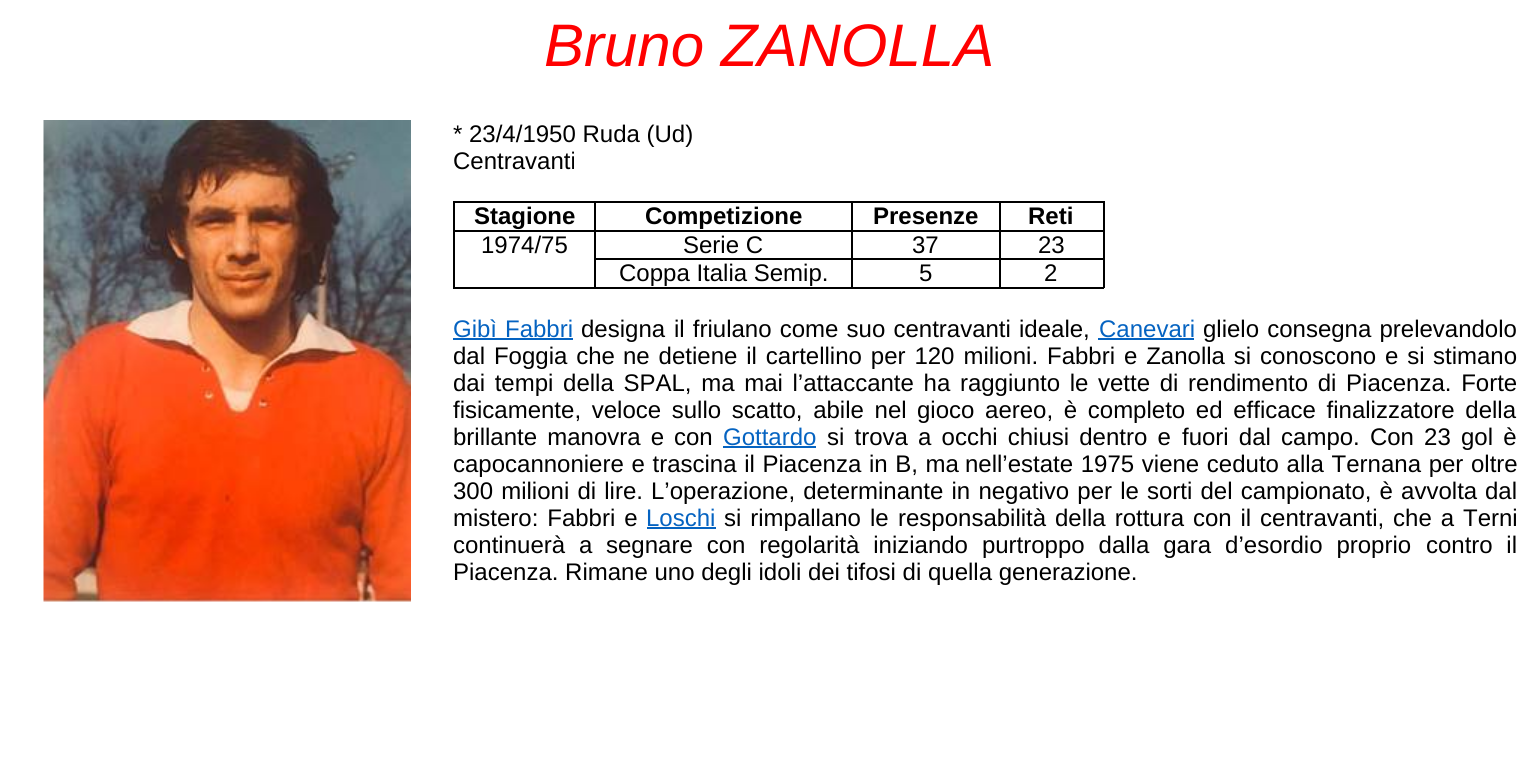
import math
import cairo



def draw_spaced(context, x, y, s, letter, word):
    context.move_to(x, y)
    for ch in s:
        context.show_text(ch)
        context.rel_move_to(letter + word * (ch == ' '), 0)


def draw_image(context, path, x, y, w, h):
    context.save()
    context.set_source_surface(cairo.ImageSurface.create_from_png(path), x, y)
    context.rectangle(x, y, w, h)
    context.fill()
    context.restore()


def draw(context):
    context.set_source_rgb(1, 1, 1)
    context.paint()
    draw_image(context, "images/1.png", 43, 120, 368, 482)
    context.set_source_rgb(0, 0, 0)
    context.rectangle(453, 201, 651, 2)
    context.fill()
    context.rectangle(1103, 230, 2, 58)
    context.fill()
    context.rectangle(1103, 201, 2, 30)
    context.fill()
    context.rectangle(999, 287, 105, 2)
    context.fill()
    context.rectangle(999, 258, 2, 30)
    context.fill()
    context.rectangle(999, 258, 105, 2)
    context.fill()
    context.rectangle(999, 230, 2, 30)
    context.fill()
    context.rectangle(999, 230, 105, 2)
    context.fill()
    context.rectangle(999, 201, 2, 30)
    context.fill()
    context.rectangle(851, 287, 150, 2)
    context.fill()
    context.rectangle(851, 258, 2, 30)
    context.fill()
    context.rectangle(851, 258, 150, 2)
    context.fill()
    context.rectangle(851, 230, 2, 30)
    context.fill()
    context.rectangle(851, 230, 150, 2)
    context.fill()
    context.rectangle(851, 201, 2, 30)
    context.fill()
    context.rectangle(594, 258, 258, 2)
    context.fill()
    context.rectangle(594, 287, 258, 2)
    context.fill()
    context.rectangle(594, 230, 2, 58)
    context.fill()
    context.rectangle(594, 230, 258, 2)
    context.fill()
    context.rectangle(594, 201, 2, 30)
    context.fill()
    context.rectangle(453, 287, 143, 2)
    context.fill()
    context.rectangle(453, 230, 2, 58)
    context.fill()
    context.rectangle(453, 230, 143, 2)
    context.fill()
    context.rectangle(453, 201, 2, 30)
    context.fill()
    context.set_source_rgb(5 / 255, 99 / 255, 193 / 255)
    context.rectangle(453, 338, 120, 2)
    context.fill()
    context.rectangle(1098, 338, 96, 2)
    context.fill()
    context.rectangle(723, 446, 93, 2)
    context.fill()
    context.rectangle(647, 527, 69, 2)
    context.fill()
    context.select_font_face("Liberation Sans", cairo.FontSlant.ITALIC)
    context.set_font_size(60)
    context.set_source_rgb(1, 0, 0)
    context.move_to(544, 66)
    context.show_text("Bruno ZANOLLA")
    context.select_font_face("Liberation Sans")
    context.set_font_size(24)
    context.set_source_rgb(0, 0, 0)
    context.move_to(453, 142)
    context.show_text("* 23/4/1950 Ruda (Ud)")
    context.move_to(453, 169)
    context.show_text("Centravanti")
    context.select_font_face("Liberation Sans", cairo.FontSlant.NORMAL, cairo.FontWeight.BOLD)
    context.move_to(474, 224)
    context.show_text("Stagione")
    context.move_to(645, 224)
    context.show_text("Competizione")
    context.move_to(873, 224)
    context.show_text("Presenze")
    context.move_to(1028, 224)
    context.show_text("Reti")
    context.select_font_face("Liberation Sans")
    context.move_to(481, 253)
    context.show_text("1974/75")
    context.move_to(683, 253)
    context.show_text("Serie C")
    context.move_to(912, 253)
    context.show_text("37")
    context.move_to(1038, 253)
    context.show_text("23")
    context.move_to(619, 281)
    context.show_text("Coppa Italia Semip.")
    context.move_to(919, 281)
    context.show_text("5")
    context.move_to(1044, 281)
    context.show_text("2")
    context.set_source_rgb(5 / 255, 99 / 255, 193 / 255)
    context.move_to(453, 337)
    context.show_text("Gibì")
    context.move_to(505, 337)
    context.show_text("Fabbri")
    context.set_source_rgb(0, 0, 0)
    context.move_to(581, 337)
    context.show_text("designa")
    draw_spaced(context, 674, 337, "il friulano come suo centravanti ideale,", 0, 1.5)
    context.set_source_rgb(5 / 255, 99 / 255, 193 / 255)
    context.move_to(1099, 337)
    context.show_text("Canevari")
    context.set_source_rgb(0, 0, 0)
    draw_spaced(context, 1203, 337, "glielo consegna prelevandolo", 0, 1.5)
    draw_spaced(context, 453, 364, "dal Foggia che", 0, 2.25)
    draw_spaced(context, 623, 364, "ne detiene il cartellino per 120 milioni. Fabbri e Zanolla si conoscono e si", 0, 2.25)
    context.move_to(1433, 364)
    context.show_text("stimano")
    draw_spaced(context, 453, 391, "dai tempi della SPAL, ma mai l’attaccante ha raggiunto le vette di", 0, 3)
    draw_spaced(context, 1188, 391, "rendimento di Piacenza. Forte", 0, 3)
    draw_spaced(context, 453, 418, "fisicamente, veloce sullo scatto, abile nel", 0, 4)
    draw_spaced(context, 917, 418, "gioco aereo, è completo ed efficace finalizzatore della", 0, 4)
    draw_spaced(context, 453, 445, "brillante manovra e", 0, 3.5)
    context.move_to(674, 445)
    context.show_text("con")
    context.set_source_rgb(5 / 255, 99 / 255, 193 / 255)
    context.move_to(723, 445)
    context.show_text("Gottardo")
    context.set_source_rgb(0, 0, 0)
    draw_spaced(context, 827, 445, "si trova a occhi chiusi dentro e", 0, 3.5)
    draw_spaced(context, 1182, 445, "fuori dal campo. Con 23 gol è", 0, 3.5)
    draw_spaced(context, 453, 472, "capocannoniere e trascina il Piacenza in B, ma", 0, 1)
    draw_spaced(context, 965, 472, "nell’estate 1975 viene ceduto alla Ternana per oltre", 0, 1)
    draw_spaced(context, 453, 499, "300 milioni di lire.", 0, 1.5)
    draw_spaced(context, 651, 499, "L’operazione, determinante in negativo per le sorti del campionato, è avvolta", 0, 1.5)
    context.move_to(1485, 499)
    context.show_text("dal")
    draw_spaced(context, 453, 526, "mistero: Fabbri e", 0, 2.25)
    context.set_source_rgb(5 / 255, 99 / 255, 193 / 255)
    context.move_to(646, 526)
    context.show_text("Loschi")
    context.set_source_rgb(0, 0, 0)
    draw_spaced(context, 724, 526, "si rimpallano le", 0, 2.25)
    draw_spaced(context, 898, 526, "responsabilità della rottura con il centravanti, che a Terni", 0, 2.25)
    draw_spaced(context, 453, 553, "continuerà a", 0, 7.25)
    draw_spaced(context, 606, 553, "segnare con regolarità iniziando purtroppo dalla gara d’esordio proprio", 0, 7.25)
    draw_spaced(context, 1426, 553, "contro il", 0, 7)
    context.move_to(453, 580)
    context.show_text("Piacenza. Rimane uno degli idoli dei tifosi di quella generazione.")


surface = cairo.ImageSurface(cairo.Format.RGB24, 1538, 764)
context = cairo.Context(surface)
options = cairo.FontOptions()
options.set_hint_metrics(cairo.HintMetrics.OFF)
options.set_hint_style(cairo.HintStyle.NONE)
context.set_font_options(options)
context.set_miter_limit(4)
draw(context)
surface.write_to_png("out.png")
